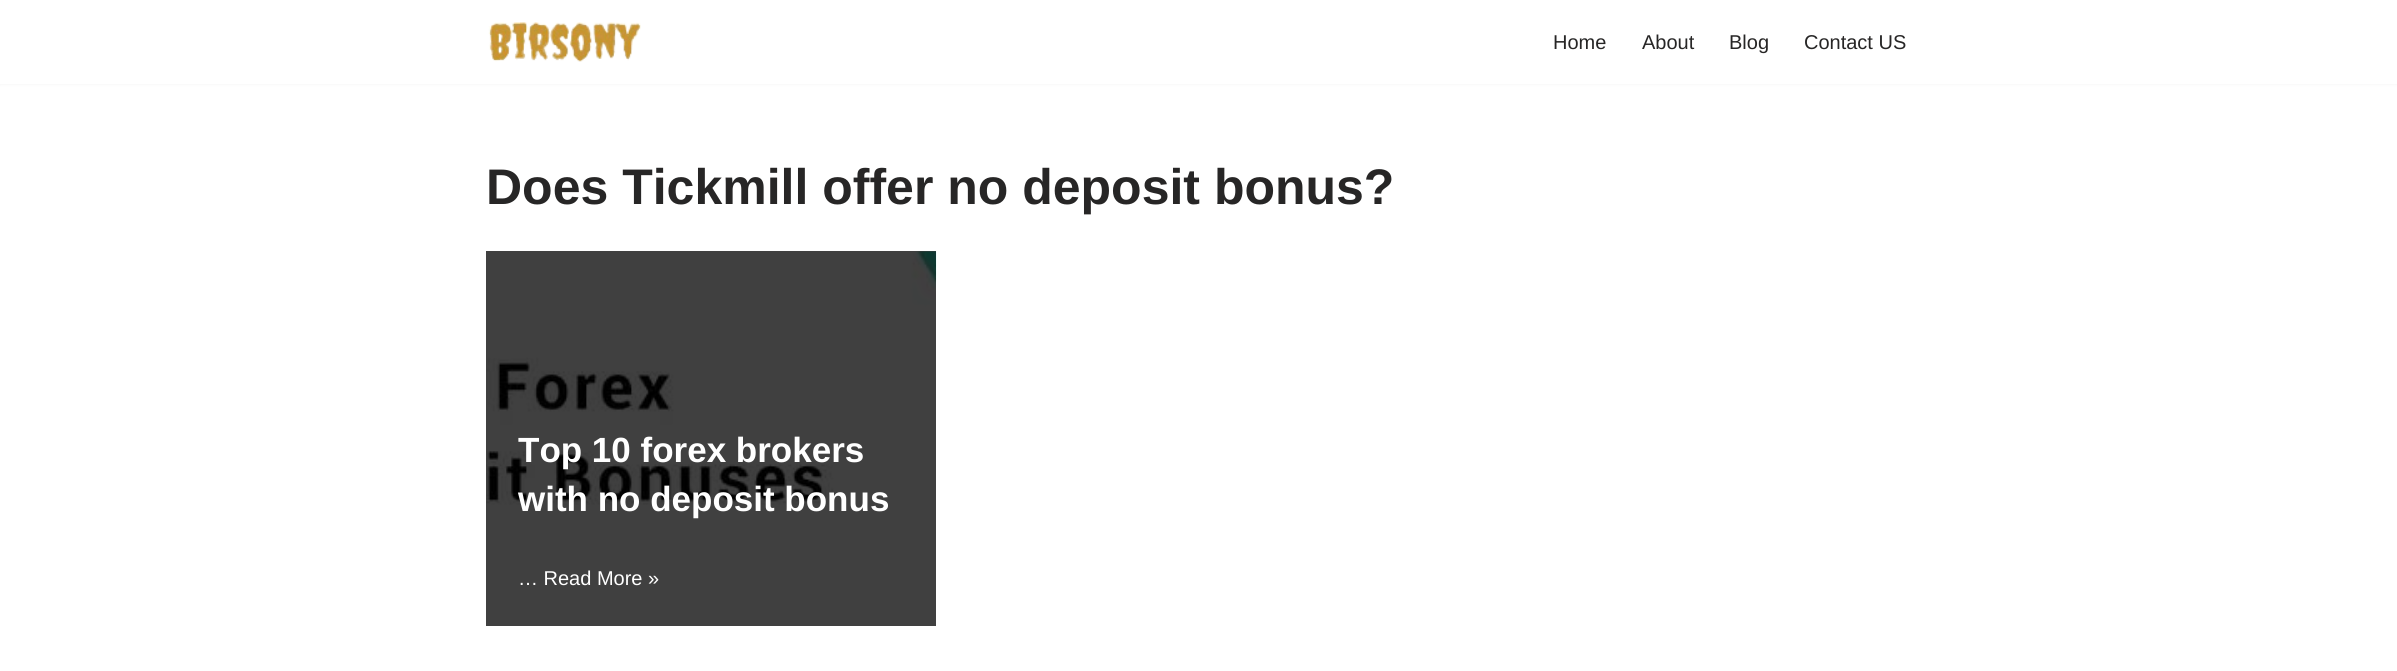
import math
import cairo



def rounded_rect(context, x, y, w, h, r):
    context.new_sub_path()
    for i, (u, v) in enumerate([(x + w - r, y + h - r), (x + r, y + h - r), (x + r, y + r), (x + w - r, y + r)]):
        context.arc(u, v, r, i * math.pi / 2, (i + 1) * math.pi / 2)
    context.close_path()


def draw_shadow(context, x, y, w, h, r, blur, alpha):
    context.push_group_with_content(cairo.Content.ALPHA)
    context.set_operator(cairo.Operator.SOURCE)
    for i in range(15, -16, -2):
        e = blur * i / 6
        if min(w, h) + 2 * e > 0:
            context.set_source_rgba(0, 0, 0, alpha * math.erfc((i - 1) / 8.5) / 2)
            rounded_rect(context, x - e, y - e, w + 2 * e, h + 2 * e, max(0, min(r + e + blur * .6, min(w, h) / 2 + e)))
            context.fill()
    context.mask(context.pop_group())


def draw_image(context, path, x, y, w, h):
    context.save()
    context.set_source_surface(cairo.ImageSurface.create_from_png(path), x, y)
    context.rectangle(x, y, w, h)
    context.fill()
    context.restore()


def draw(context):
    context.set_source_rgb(1, 1, 1)
    context.paint()
    context.set_source_rgb(64 / 255, 64 / 255, 64 / 255)
    context.rectangle(486, 251, 450, 375)
    context.fill()
    context.set_source_rgb(0, 0, 0)
    draw_shadow(context, 0, -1, 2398, 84, 0, 2, 0.1)
    context.set_source_rgb(1, 1, 1)
    context.rectangle(0, 0, 2397, 84)
    context.fill()
    draw_image(context, "images/1.png", 488, 22, 153, 40)
    draw_image(context, "images/2.png", 486, 251, 451, 254)
    context.select_font_face("Liberation Sans")
    context.set_font_size(20)
    context.set_source_rgb(39 / 255, 38 / 255, 38 / 255)
    context.move_to(1553, 49)
    context.show_text("Home")
    context.move_to(1642, 49)
    context.show_text("About")
    context.move_to(1729, 49)
    context.show_text("Blog")
    context.move_to(1804, 49)
    context.show_text("Contact US")
    context.select_font_face("Liberation Sans", cairo.FontSlant.NORMAL, cairo.FontWeight.BOLD)
    context.set_font_size(50)
    context.move_to(486, 204)
    context.show_text("Does Tickmill offer no deposit bonus?")
    context.set_font_size(35)
    context.set_source_rgb(1, 1, 1)
    context.move_to(518, 462)
    context.show_text("Top 10 forex brokers")
    context.move_to(518, 511)
    context.show_text("with no deposit bonus")
    context.select_font_face("Liberation Sans")
    context.set_font_size(20)
    context.move_to(518, 585)
    context.show_text("… Read More »")


surface = cairo.ImageSurface(cairo.Format.RGB24, 2397, 671)
context = cairo.Context(surface)
options = cairo.FontOptions()
options.set_hint_metrics(cairo.HintMetrics.OFF)
options.set_hint_style(cairo.HintStyle.NONE)
context.set_font_options(options)
context.set_miter_limit(4)
draw(context)
surface.write_to_png("out.png")
